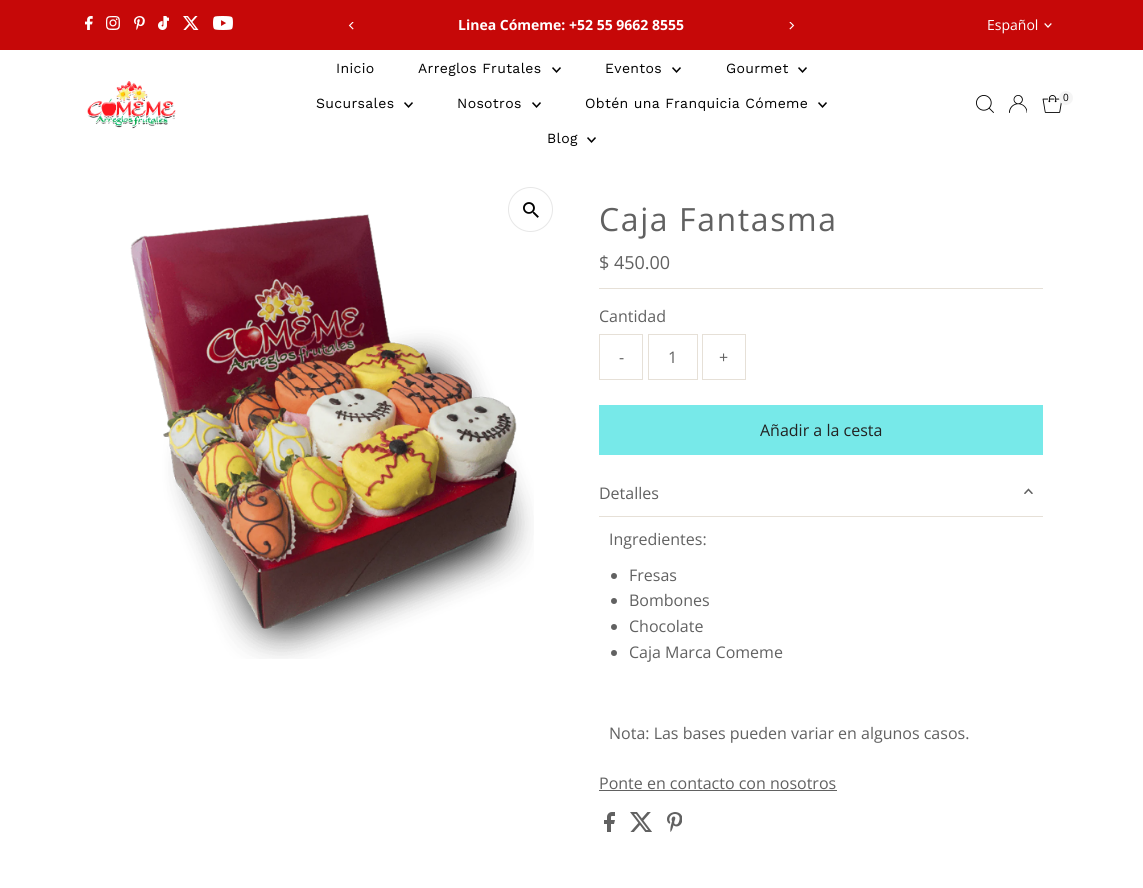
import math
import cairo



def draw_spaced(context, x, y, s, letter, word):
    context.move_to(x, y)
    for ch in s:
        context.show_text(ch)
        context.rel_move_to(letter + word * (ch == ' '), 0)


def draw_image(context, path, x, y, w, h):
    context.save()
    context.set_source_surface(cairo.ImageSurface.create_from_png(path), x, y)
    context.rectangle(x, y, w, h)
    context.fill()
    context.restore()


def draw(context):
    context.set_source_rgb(1, 1, 1)
    context.paint()
    context.set_source_rgb(198 / 255, 8 / 255, 8 / 255)
    context.rectangle(0, 0, 1143, 50)
    context.fill()
    draw_image(context, "images/1.png", 85, 16, 8, 14)
    draw_image(context, "images/2.png", 106, 16, 14, 14)
    draw_image(context, "images/3.png", 134, 16, 11, 14)
    draw_image(context, "images/4.png", 158, 16, 11, 14)
    draw_image(context, "images/5.png", 183, 16, 16, 14)
    draw_image(context, "images/6.png", 213, 16, 20, 14)
    draw_image(context, "images/7.png", 348, 22, 6, 8)
    draw_image(context, "images/8.png", 789, 22, 6, 8)
    draw_image(context, "images/9.png", 1044, 23, 8, 5)
    draw_image(context, "images/10.png", 87, 81, 89, 48)
    draw_image(context, "images/11.png", 552, 67, 9, 6)
    draw_image(context, "images/11.png", 672, 67, 9, 6)
    draw_image(context, "images/11.png", 798, 67, 9, 6)
    draw_image(context, "images/11.png", 404, 102, 9, 6)
    draw_image(context, "images/11.png", 532, 102, 9, 6)
    draw_image(context, "images/11.png", 818, 102, 9, 6)
    draw_image(context, "images/11.png", 587, 137, 9, 6)
    draw_image(context, "images/12.png", 976, 95, 18, 18)
    draw_image(context, "images/13.png", 1009, 95, 18, 18)
    draw_image(context, "images/14.png", 1042, 95, 20, 18)
    context.set_source_rgb(245 / 255, 245 / 255, 245 / 255)
    context.arc(1066, 98, 7, 0, 2 * math.pi)
    context.fill()
    draw_image(context, "images/16.png", 130, 214, 404, 445)
    context.arc(530.5, 209.5, 22, 0, 2 * math.pi)
    context.set_source_rgb(231 / 255, 231 / 255, 231 / 255)
    context.set_line_width(1)
    context.stroke()
    draw_image(context, "images/15.png", 523, 202, 16, 16)
    context.set_source_rgb(230 / 255, 224 / 255, 215 / 255)
    context.rectangle(599, 288, 444, 1)
    context.fill()
    context.rectangle(599.5, 334.5, 43, 45)
    context.stroke()
    context.rectangle(648.5, 334.5, 49, 45)
    context.stroke()
    context.rectangle(702.5, 334.5, 43, 45)
    context.stroke()
    context.set_source_rgb(119 / 255, 233 / 255, 233 / 255)
    context.rectangle(599, 405, 444, 50)
    context.fill()
    context.set_source_rgb(230 / 255, 224 / 255, 215 / 255)
    context.rectangle(599, 516, 444, 1)
    context.fill()
    draw_image(context, "images/17.png", 1024, 488, 9, 6)
    context.set_source_rgb(97 / 255, 97 / 255, 97 / 255)
    context.arc(614, 576, 3, 0, 2 * math.pi)
    context.fill()
    context.arc(614, 601, 3, 0, 2 * math.pi)
    context.fill()
    context.arc(614, 627, 3, 0, 2 * math.pi)
    context.fill()
    context.arc(614, 653, 3, 0, 2 * math.pi)
    context.fill()
    context.rectangle(599, 790, 238, 1)
    context.fill()
    draw_image(context, "images/18.png", 604, 812, 11, 20)
    draw_image(context, "images/19.png", 630, 812, 22, 20)
    draw_image(context, "images/20.png", 667, 812, 15, 20)
    context.select_font_face("Open Sans", cairo.FontSlant.NORMAL, cairo.FontWeight.BOLD)
    context.set_font_size(14)
    context.set_source_rgb(1, 1, 1)
    context.move_to(458, 30)
    context.show_text("Linea Cómeme: +52 55 9662 8555")
    context.select_font_face("Open Sans")
    context.move_to(987, 30)
    context.show_text("Español")
    context.select_font_face("Work Sans")
    context.set_source_rgb(0, 0, 0)
    draw_spaced(context, 336, 73, "Inicio", 0.35, 0)
    draw_spaced(context, 418, 73, "Arreglos Frutales", 0.35, 0)
    draw_spaced(context, 605, 73, "Eventos", 0.35, 0)
    draw_spaced(context, 726, 73, "Gourmet", 0.35, 0)
    draw_spaced(context, 316, 108, "Sucursales", 0.35, 0)
    draw_spaced(context, 457, 108, "Nosotros", 0.35, 0)
    draw_spaced(context, 585, 108, "Obtén una Franquicia Cómeme", 0.35, 0)
    draw_spaced(context, 547, 143, "Blog", 0.35, 0)
    context.select_font_face("Open Sans")
    context.set_font_size(10)
    context.move_to(1063, 101)
    context.show_text("0")
    context.set_font_size(32)
    context.set_source_rgb(97 / 255, 97 / 255, 97 / 255)
    draw_spaced(context, 599, 231, "Caja Fantasma", 1.6, 0)
    context.set_font_size(18)
    context.move_to(599, 269)
    context.show_text("$ 450.00")
    context.set_font_size(16)
    context.move_to(599, 322)
    context.show_text("Cantidad")
    context.move_to(619, 363)
    context.show_text("-")
    context.move_to(668, 363)
    context.show_text("1")
    context.move_to(719, 363)
    context.show_text("+")
    context.set_source_rgb(34 / 255, 34 / 255, 34 / 255)
    context.move_to(760, 436)
    context.show_text("Añadir a la cesta")
    context.set_source_rgb(97 / 255, 97 / 255, 97 / 255)
    context.move_to(599, 499)
    context.show_text("Detalles")
    context.move_to(609, 545)
    context.show_text("Ingredientes:")
    context.move_to(629, 581)
    context.show_text("Fresas")
    context.move_to(629, 606)
    context.show_text("Bombones")
    context.move_to(629, 632)
    context.show_text("Chocolate")
    context.move_to(629, 658)
    context.show_text("Caja Marca Comeme")
    context.move_to(609, 739)
    context.show_text("Nota: Las bases pueden variar en algunos casos.")
    context.move_to(599, 789)
    context.show_text("Ponte en contacto con nosotros")


surface = cairo.ImageSurface(cairo.Format.RGB24, 1143, 888)
context = cairo.Context(surface)
options = cairo.FontOptions()
options.set_hint_metrics(cairo.HintMetrics.OFF)
options.set_hint_style(cairo.HintStyle.NONE)
context.set_font_options(options)
context.set_miter_limit(4)
draw(context)
surface.write_to_png("out.png")
